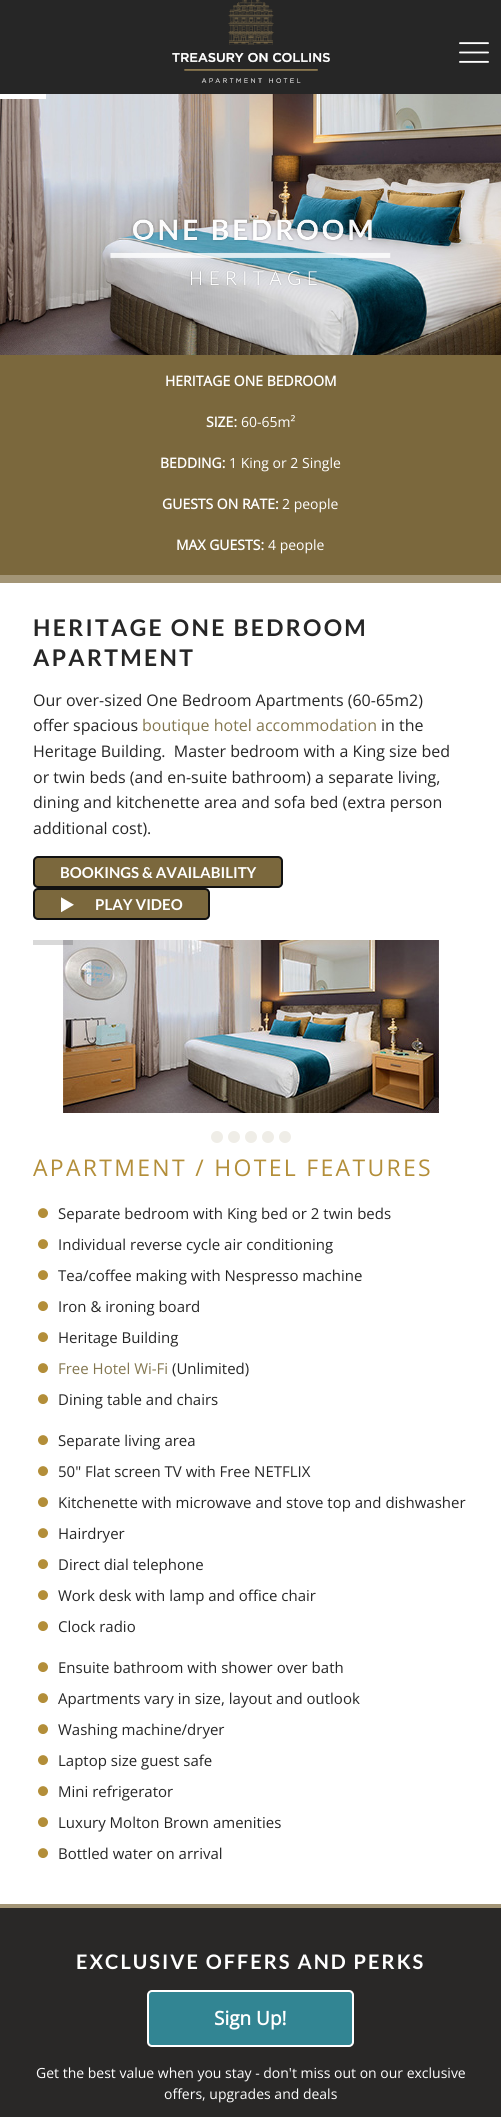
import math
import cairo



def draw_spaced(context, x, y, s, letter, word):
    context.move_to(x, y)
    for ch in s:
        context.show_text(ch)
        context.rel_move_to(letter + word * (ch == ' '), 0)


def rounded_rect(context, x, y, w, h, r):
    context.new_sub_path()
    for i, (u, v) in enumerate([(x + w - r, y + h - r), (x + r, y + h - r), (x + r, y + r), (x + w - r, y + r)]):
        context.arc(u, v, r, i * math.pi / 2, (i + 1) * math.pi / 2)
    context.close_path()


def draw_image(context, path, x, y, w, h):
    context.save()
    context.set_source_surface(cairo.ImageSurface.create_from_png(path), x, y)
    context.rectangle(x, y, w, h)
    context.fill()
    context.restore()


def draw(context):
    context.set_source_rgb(1, 1, 1)
    context.paint()
    context.set_source_rgb(38 / 255, 38 / 255, 38 / 255)
    context.rectangle(0, 0, 501, 94)
    context.fill()
    draw_image(context, "images/1.png", 172, 0, 158, 83)
    draw_image(context, "images/2.png", 459, 42, 30, 21)
    draw_image(context, "images/3.png", 0, 94, 501, 261)
    draw_image(context, "images/4.png", 110, 218, 281, 68)
    context.set_source_rgb(1, 1, 1)
    context.rectangle(0, 94, 46, 5)
    context.fill()
    context.set_source_rgb(123 / 255, 104 / 255, 61 / 255)
    context.rectangle(0, 355, 501, 220)
    context.fill()
    context.set_source_rgb(163 / 255, 149 / 255, 118 / 255)
    context.rectangle(0, 575, 501, 8)
    context.fill()
    context.set_source_rgb(123 / 255, 104 / 255, 61 / 255)
    rounded_rect(context, 34, 857, 248, 30, 4)
    context.fill_preserve()
    context.set_source_rgb(17 / 255, 17 / 255, 17 / 255)
    context.stroke()
    context.set_source_rgb(123 / 255, 104 / 255, 61 / 255)
    rounded_rect(context, 34, 889, 175, 30, 4)
    context.fill_preserve()
    context.set_source_rgb(17 / 255, 17 / 255, 17 / 255)
    context.stroke()
    draw_image(context, "images/5.png", 61, 897, 13, 16)
    draw_image(context, "images/6.png", 63, 940, 376, 173)
    context.set_source_rgba(0, 0, 0, 0.15)
    context.rectangle(33, 940, 40, 5)
    context.fill()
    context.set_source_rgb(239 / 255, 237 / 255, 231 / 255)
    context.arc(217, 1137, 6, 0, 2 * math.pi)
    context.fill()
    context.arc(234, 1137, 6, 0, 2 * math.pi)
    context.fill()
    context.arc(251, 1137, 6, 0, 2 * math.pi)
    context.fill()
    context.arc(268, 1137, 6, 0, 2 * math.pi)
    context.fill()
    context.arc(285, 1137, 6, 0, 2 * math.pi)
    context.fill()
    draw_image(context, "images/7.png", 38, 1208, 10, 10)
    draw_image(context, "images/7.png", 38, 1239, 10, 10)
    draw_image(context, "images/7.png", 38, 1270, 10, 10)
    draw_image(context, "images/7.png", 38, 1301, 10, 10)
    draw_image(context, "images/7.png", 38, 1332, 10, 10)
    draw_image(context, "images/7.png", 38, 1363, 10, 10)
    draw_image(context, "images/7.png", 38, 1394, 10, 10)
    draw_image(context, "images/7.png", 38, 1435, 10, 10)
    draw_image(context, "images/7.png", 38, 1466, 10, 10)
    draw_image(context, "images/7.png", 38, 1497, 10, 10)
    draw_image(context, "images/7.png", 38, 1528, 10, 10)
    draw_image(context, "images/7.png", 38, 1559, 10, 10)
    draw_image(context, "images/7.png", 38, 1590, 10, 10)
    draw_image(context, "images/7.png", 38, 1621, 10, 10)
    draw_image(context, "images/7.png", 38, 1662, 10, 10)
    draw_image(context, "images/7.png", 38, 1693, 10, 10)
    draw_image(context, "images/7.png", 38, 1724, 10, 10)
    draw_image(context, "images/7.png", 38, 1755, 10, 10)
    draw_image(context, "images/7.png", 38, 1786, 10, 10)
    draw_image(context, "images/7.png", 38, 1817, 10, 10)
    draw_image(context, "images/7.png", 38, 1848, 10, 10)
    context.set_source_rgb(41 / 255, 40 / 255, 39 / 255)
    context.rectangle(0, 1908, 501, 209)
    context.fill()
    context.set_source_rgb(163 / 255, 149 / 255, 118 / 255)
    context.rectangle(0, 1904, 501, 4)
    context.fill()
    context.set_source_rgb(50 / 255, 133 / 255, 147 / 255)
    rounded_rect(context, 148, 1991, 205, 55, 4)
    context.fill_preserve()
    context.set_source_rgb(1, 1, 1)
    context.stroke()
    context.select_font_face("Open Sans", cairo.FontSlant.NORMAL, cairo.FontWeight.BOLD)
    context.set_font_size(14)
    context.move_to(165, 386)
    context.show_text("HERITAGE ONE BEDROOM")
    context.move_to(206, 427)
    context.show_text("SIZE:")
    context.select_font_face("Open Sans")
    context.move_to(241, 427)
    context.show_text("60-65m²")
    context.select_font_face("Open Sans", cairo.FontSlant.NORMAL, cairo.FontWeight.BOLD)
    context.move_to(160, 468)
    context.show_text("BEDDING:")
    context.select_font_face("Open Sans")
    context.move_to(229, 468)
    context.show_text("1 King or 2 Single")
    context.select_font_face("Open Sans", cairo.FontSlant.NORMAL, cairo.FontWeight.BOLD)
    context.move_to(162, 509)
    context.show_text("GUESTS ON RATE:")
    context.select_font_face("Open Sans")
    context.move_to(282, 509)
    context.show_text("2 people")
    context.select_font_face("Open Sans", cairo.FontSlant.NORMAL, cairo.FontWeight.BOLD)
    context.move_to(176, 550)
    context.show_text("MAX GUESTS:")
    context.select_font_face("Open Sans")
    context.move_to(268, 550)
    context.show_text("4 people")
    context.select_font_face("Lato", cairo.FontSlant.NORMAL, cairo.FontWeight.BOLD)
    context.set_font_size(23)
    context.set_source_rgb(38 / 255, 38 / 255, 38 / 255)
    draw_spaced(context, 33, 636, "HERITAGE ONE BEDROOM", 2.3, 0)
    draw_spaced(context, 33, 666, "APARTMENT", 2.3, 0)
    context.select_font_face("Open Sans")
    context.set_font_size(16)
    context.move_to(33, 706)
    context.show_text("Our over-sized One Bedroom Apartments (60-65m2)")
    context.move_to(33, 731)
    context.show_text("offer spacious")
    context.set_source_rgb(132 / 255, 119 / 255, 80 / 255)
    context.move_to(142, 731)
    context.show_text("boutique hotel accommodation")
    context.set_source_rgb(38 / 255, 38 / 255, 38 / 255)
    context.move_to(381, 731)
    context.show_text("in the")
    context.move_to(33, 757)
    context.show_text("Heritage Building.  Master bedroom with a King size bed")
    context.move_to(33, 783)
    context.show_text("or twin beds (and en-suite bathroom) a separate living,")
    context.move_to(33, 808)
    context.show_text("dining and kitchenette area and sofa bed (extra person")
    context.move_to(33, 834)
    context.show_text("additional cost).")
    context.select_font_face("Lato", cairo.FontSlant.NORMAL, cairo.FontWeight.BOLD)
    context.set_font_size(15)
    context.set_source_rgb(1, 1, 1)
    context.move_to(60, 878)
    context.show_text("BOOKINGS & AVAILABILITY")
    context.move_to(95, 910)
    context.show_text("PLAY VIDEO")
    context.select_font_face("Open Sans")
    context.set_font_size(23)
    context.set_source_rgb(179 / 255, 142 / 255, 57 / 255)
    draw_spaced(context, 33, 1176, "APARTMENT / HOTEL FEATURES", 2.3, 0)
    context.set_font_size(15)
    context.set_source_rgb(38 / 255, 38 / 255, 38 / 255)
    context.move_to(58, 1219)
    context.show_text("Separate bedroom with King bed or 2 twin beds")
    context.move_to(58, 1250)
    context.show_text("Individual reverse cycle air conditioning")
    context.move_to(58, 1281)
    context.show_text("Tea/coffee making with Nespresso machine")
    context.move_to(58, 1312)
    context.show_text("Iron & ironing board")
    context.move_to(58, 1343)
    context.show_text("Heritage Building")
    context.set_source_rgb(132 / 255, 119 / 255, 80 / 255)
    context.move_to(58, 1374)
    context.show_text("Free Hotel Wi-Fi")
    context.set_source_rgb(38 / 255, 38 / 255, 38 / 255)
    context.move_to(172, 1374)
    context.show_text("(Unlimited)")
    context.move_to(58, 1405)
    context.show_text("Dining table and chairs")
    context.move_to(58, 1446)
    context.show_text("Separate living area")
    context.move_to(58, 1477)
    context.show_text("50\" Flat screen TV with Free NETFLIX")
    context.move_to(58, 1508)
    context.show_text("Kitchenette with microwave and stove top and dishwasher")
    context.move_to(58, 1539)
    context.show_text("Hairdryer")
    context.move_to(58, 1570)
    context.show_text("Direct dial telephone")
    context.move_to(58, 1601)
    context.show_text("Work desk with lamp and office chair")
    context.move_to(58, 1632)
    context.show_text("Clock radio")
    context.move_to(58, 1673)
    context.show_text("Ensuite bathroom with shower over bath")
    context.move_to(58, 1704)
    context.show_text("Apartments vary in size, layout and outlook")
    context.move_to(58, 1735)
    context.show_text("Washing machine/dryer")
    context.move_to(58, 1766)
    context.show_text("Laptop size guest safe")
    context.move_to(58, 1797)
    context.show_text("Mini refrigerator")
    context.move_to(58, 1828)
    context.show_text("Luxury Molton Brown amenities")
    context.move_to(58, 1859)
    context.show_text("Bottled water on arrival")
    context.select_font_face("Lato", cairo.FontSlant.NORMAL, cairo.FontWeight.BOLD)
    context.set_font_size(20)
    context.set_source_rgb(1, 1, 1)
    draw_spaced(context, 76, 1969, "EXCLUSIVE OFFERS AND PERKS", 2, 0)
    context.select_font_face("Open Sans", cairo.FontSlant.NORMAL, cairo.FontWeight.BOLD)
    context.set_font_size(19)
    context.move_to(214, 2025)
    context.show_text("Sign Up!")
    context.select_font_face("Open Sans")
    context.set_font_size(14)
    context.move_to(36, 2078)
    context.show_text("Get the best value when you stay - don't miss out on our exclusive")
    context.move_to(164, 2099)
    context.show_text("offers, upgrades and deals")


surface = cairo.ImageSurface(cairo.Format.RGB24, 501, 2117)
context = cairo.Context(surface)
options = cairo.FontOptions()
options.set_hint_metrics(cairo.HintMetrics.OFF)
options.set_hint_style(cairo.HintStyle.NONE)
context.set_font_options(options)
context.set_miter_limit(4)
draw(context)
surface.write_to_png("out.png")
